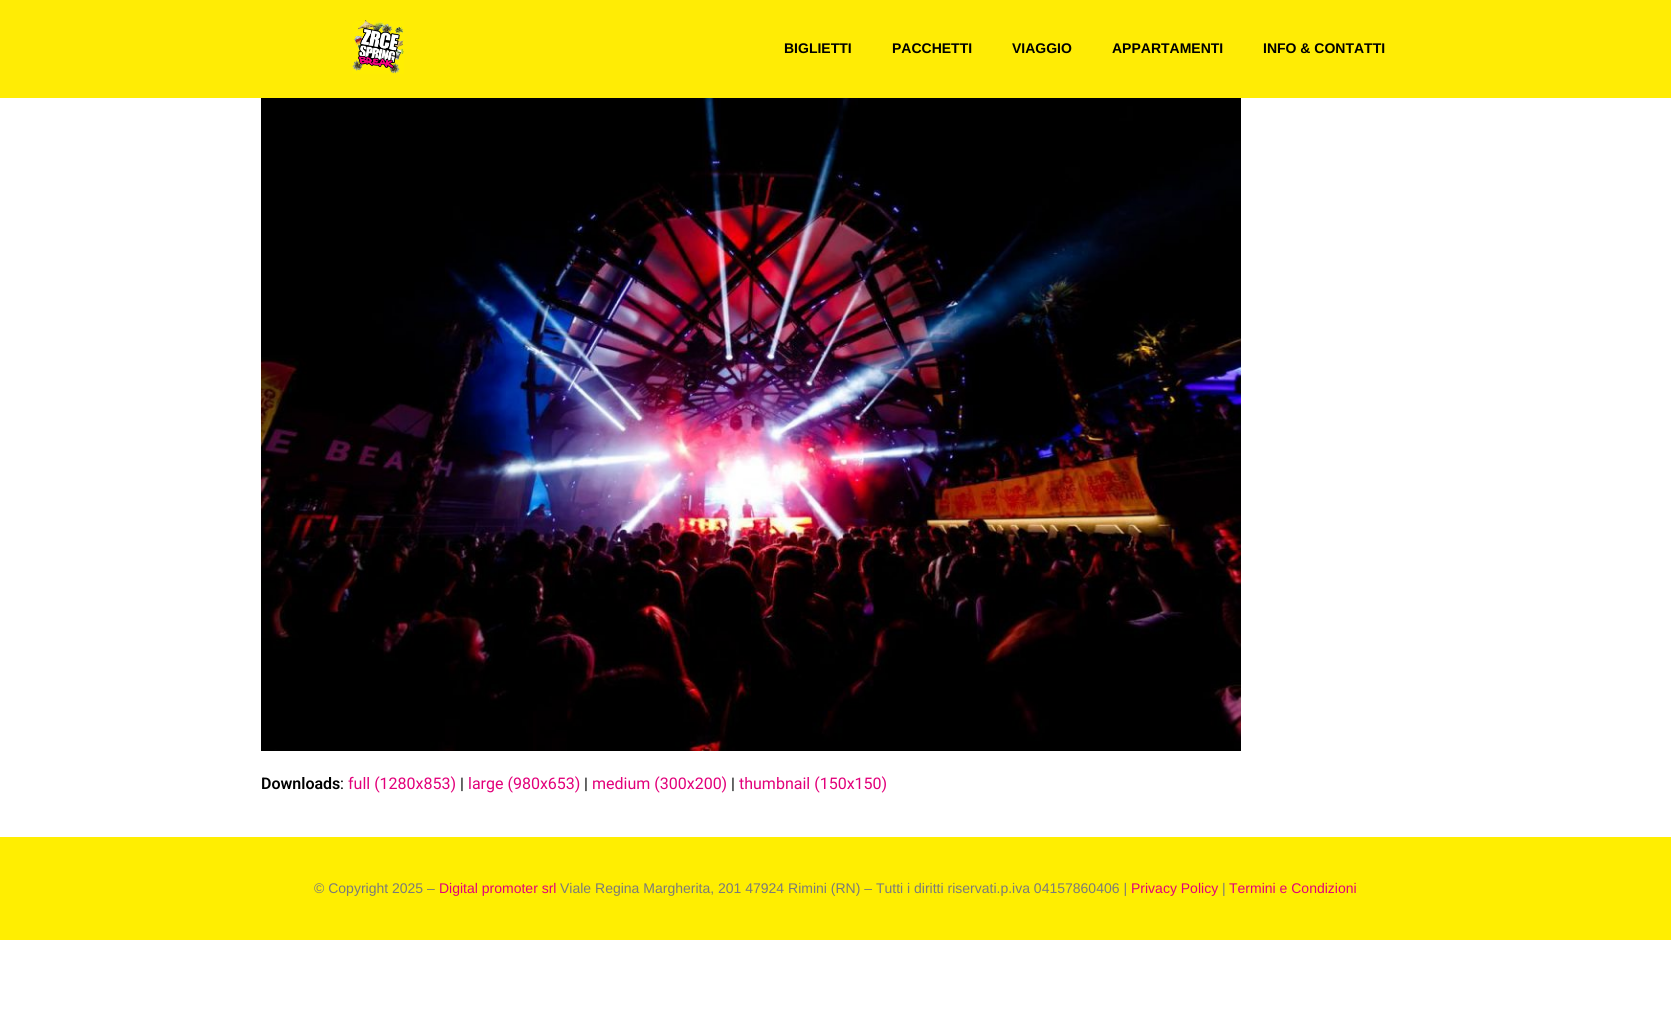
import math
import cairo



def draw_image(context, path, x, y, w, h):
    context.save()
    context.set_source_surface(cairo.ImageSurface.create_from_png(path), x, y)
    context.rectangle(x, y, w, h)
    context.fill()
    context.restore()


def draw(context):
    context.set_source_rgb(1, 1, 1)
    context.paint()
    context.set_source_rgb(1, 236 / 255, 5 / 255)
    context.rectangle(0, 0, 1671, 98)
    context.fill()
    draw_image(context, "images/1.png", 352, 20, 52, 54)
    draw_image(context, "images/2.png", 261, 98, 980, 653)
    context.set_source_rgb(1, 238 / 255, 1 / 255)
    context.rectangle(0, 837, 1671, 103)
    context.fill()
    context.select_font_face("Liberation Sans", cairo.FontSlant.NORMAL, cairo.FontWeight.BOLD)
    context.set_font_size(14)
    context.set_source_rgb(0, 0, 0)
    context.move_to(784, 53)
    context.show_text("BIGLIETTI")
    context.move_to(892, 53)
    context.show_text("PACCHETTI")
    context.move_to(1012, 53)
    context.show_text("VIAGGIO")
    context.move_to(1112, 53)
    context.show_text("APPARTAMENTI")
    context.move_to(1263, 53)
    context.show_text("INFO & CONTATTI")
    context.select_font_face("Roboto SemiBold")
    context.set_font_size(16)
    context.move_to(261, 789)
    context.show_text("Downloads")
    context.select_font_face("Roboto")
    context.move_to(340, 789)
    context.show_text(":")
    context.set_source_rgb(226 / 255, 0, 122 / 255)
    context.move_to(348, 789)
    context.show_text("full (1280x853)")
    context.set_source_rgb(0, 0, 0)
    context.move_to(460, 789)
    context.show_text("|")
    context.set_source_rgb(226 / 255, 0, 122 / 255)
    context.move_to(468, 789)
    context.show_text("large (980x653)")
    context.set_source_rgb(0, 0, 0)
    context.move_to(584, 789)
    context.show_text("|")
    context.set_source_rgb(226 / 255, 0, 122 / 255)
    context.move_to(592, 789)
    context.show_text("medium (300x200)")
    context.set_source_rgb(0, 0, 0)
    context.move_to(731, 789)
    context.show_text("|")
    context.set_source_rgb(226 / 255, 0, 122 / 255)
    context.move_to(739, 789)
    context.show_text("thumbnail (150x150)")
    context.select_font_face("Liberation Sans")
    context.set_font_size(14)
    context.set_source_rgb(122 / 255, 122 / 255, 122 / 255)
    context.move_to(314, 893)
    context.show_text("© Copyright 2025 –")
    context.set_source_rgb(226 / 255, 0, 122 / 255)
    context.move_to(439, 893)
    context.show_text("Digital promoter srl")
    context.set_source_rgb(122 / 255, 122 / 255, 122 / 255)
    context.move_to(560, 893)
    context.show_text("Viale Regina Margherita, 201 47924 Rimini (RN) – Tutti i diritti riservati.p.iva 04157860406 |")
    context.set_source_rgb(226 / 255, 0, 122 / 255)
    context.move_to(1131, 893)
    context.show_text("Privacy Policy")
    context.set_source_rgb(122 / 255, 122 / 255, 122 / 255)
    context.move_to(1222, 893)
    context.show_text("|")
    context.set_source_rgb(226 / 255, 0, 122 / 255)
    context.move_to(1229, 893)
    context.show_text("Termini e Condizioni")


surface = cairo.ImageSurface(cairo.Format.RGB24, 1671, 1027)
context = cairo.Context(surface)
options = cairo.FontOptions()
options.set_hint_metrics(cairo.HintMetrics.OFF)
options.set_hint_style(cairo.HintStyle.NONE)
context.set_font_options(options)
context.set_miter_limit(4)
draw(context)
surface.write_to_png("out.png")
